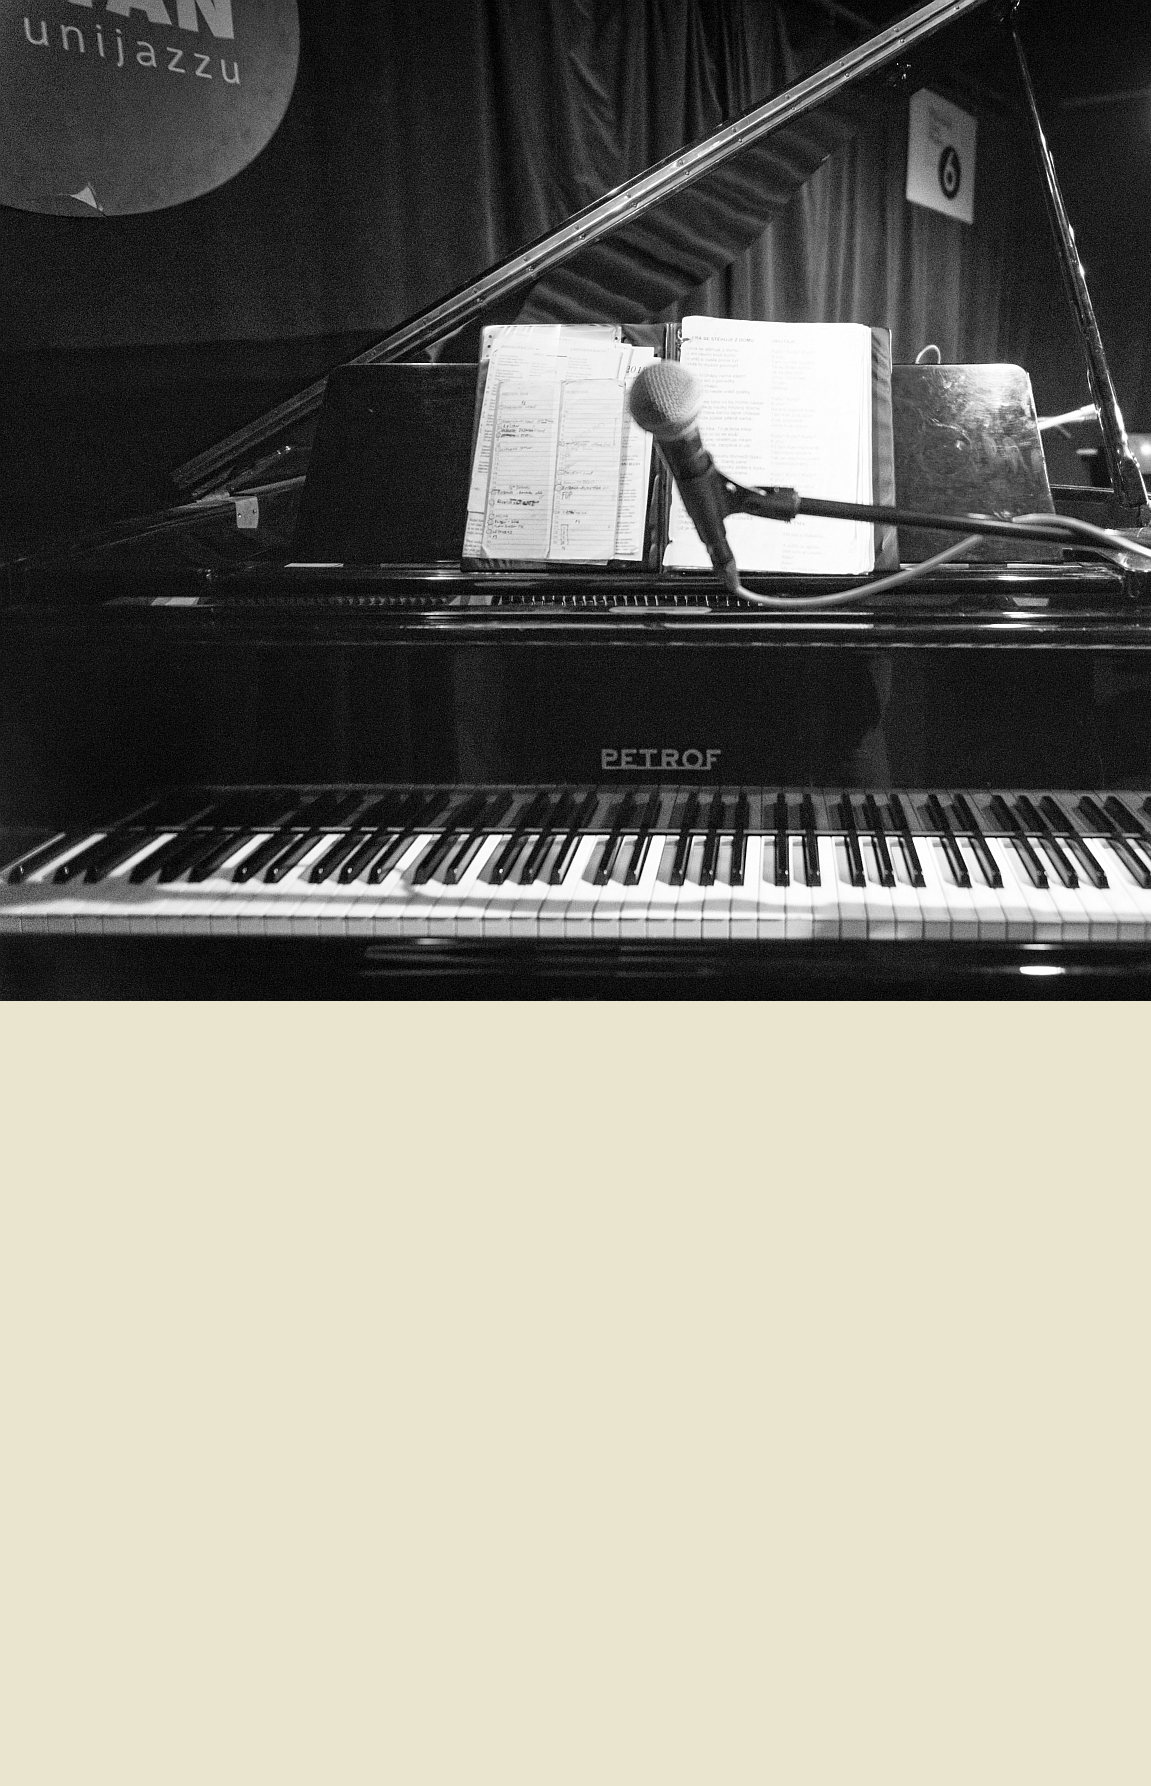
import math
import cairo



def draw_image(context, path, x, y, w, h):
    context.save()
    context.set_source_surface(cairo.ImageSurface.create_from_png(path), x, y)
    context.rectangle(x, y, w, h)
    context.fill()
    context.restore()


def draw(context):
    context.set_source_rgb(234 / 255, 229 / 255, 206 / 255)
    context.paint()
    draw_image(context, "images/1.png", 0, 0, 1151, 1001)


surface = cairo.ImageSurface(cairo.Format.RGB24, 1151, 1786)
context = cairo.Context(surface)
options = cairo.FontOptions()
options.set_hint_metrics(cairo.HintMetrics.OFF)
options.set_hint_style(cairo.HintStyle.NONE)
context.set_font_options(options)
context.set_miter_limit(4)
draw(context)
surface.write_to_png("out.png")
